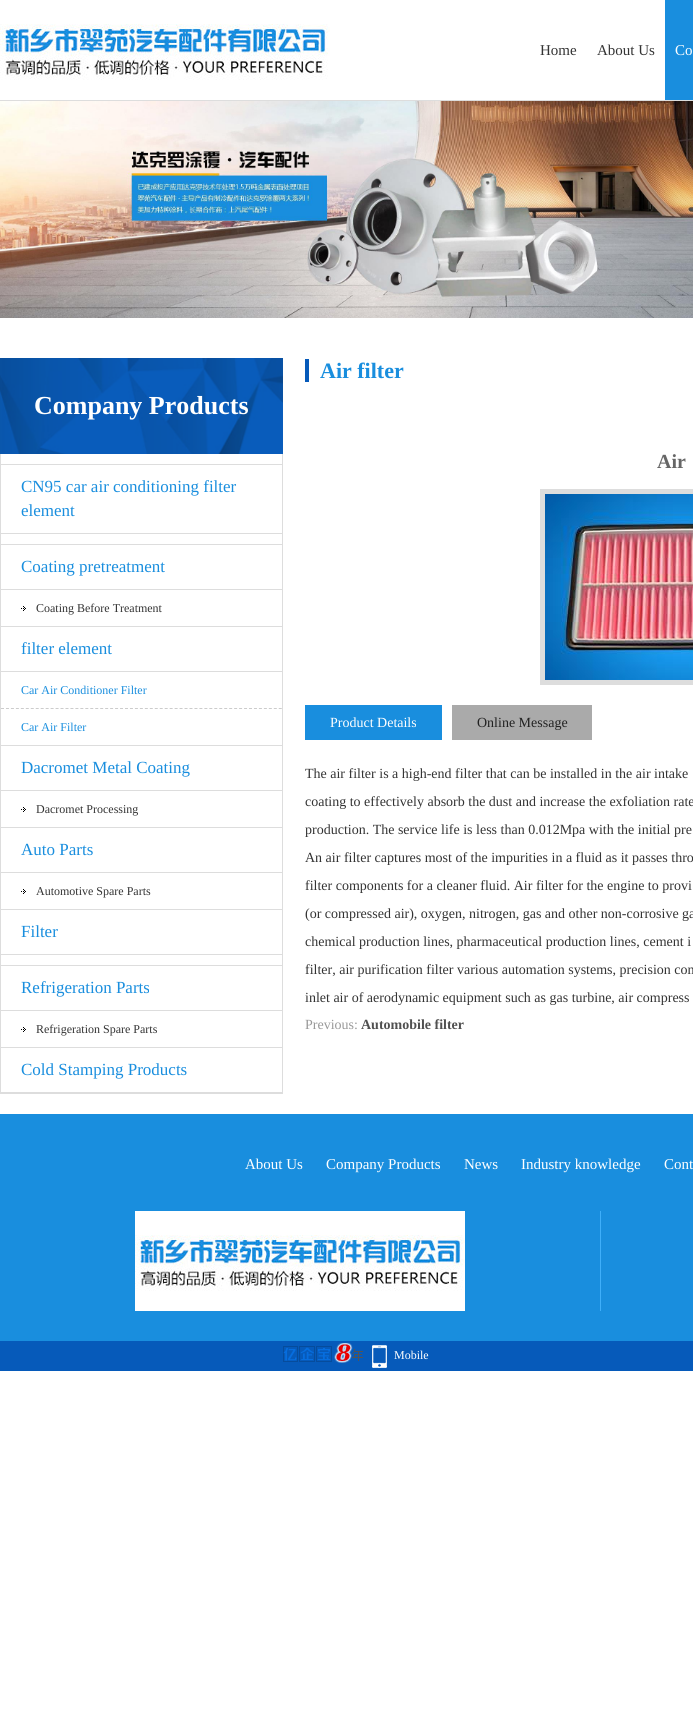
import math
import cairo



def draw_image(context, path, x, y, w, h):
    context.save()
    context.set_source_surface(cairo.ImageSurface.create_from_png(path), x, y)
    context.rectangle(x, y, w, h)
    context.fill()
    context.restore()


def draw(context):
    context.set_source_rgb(1, 1, 1)
    context.paint()
    context.set_source_rgb(221 / 255, 221 / 255, 221 / 255)
    context.rectangle(0, 100, 693, 1)
    context.fill()
    draw_image(context, "images/1.png", 0, 24, 330, 56)
    context.set_source_rgb(25 / 255, 142 / 255, 222 / 255)
    context.rectangle(665, 0, 28, 100)
    context.fill()
    draw_image(context, "images/2.png", 0, 101, 693, 217)
    draw_image(context, "images/3.png", 0, 358, 283, 96)
    context.set_source_rgb(221 / 255, 221 / 255, 221 / 255)
    context.rectangle(282, 454, 1, 640)
    context.fill()
    context.rectangle(0, 1093, 283, 1)
    context.fill()
    context.rectangle(0, 454, 1, 640)
    context.fill()
    context.rectangle(1, 464, 281, 1)
    context.fill()
    context.rectangle(1, 533, 281, 1)
    context.fill()
    context.rectangle(1, 544, 281, 1)
    context.fill()
    context.rectangle(1, 589, 281, 1)
    context.fill()
    draw_image(context, "images/4.png", 21, 606, 5, 5)
    context.rectangle(1, 626, 281, 1)
    context.fill()
    context.rectangle(1, 671, 281, 1)
    context.fill()
    context.new_path()
    context.move_to(1, 708.5)
    context.line_to(282, 708.5)
    context.set_source_rgb(204 / 255, 204 / 255, 204 / 255)
    context.set_line_width(1)
    context.set_dash([3, 1.96])
    context.stroke()
    context.set_source_rgb(221 / 255, 221 / 255, 221 / 255)
    context.rectangle(1, 745, 281, 1)
    context.fill()
    context.rectangle(1, 790, 281, 1)
    context.fill()
    draw_image(context, "images/4.png", 21, 807, 5, 5)
    context.rectangle(1, 827, 281, 1)
    context.fill()
    context.rectangle(1, 872, 281, 1)
    context.fill()
    draw_image(context, "images/4.png", 21, 889, 5, 5)
    context.rectangle(1, 909, 281, 1)
    context.fill()
    context.rectangle(1, 954, 281, 1)
    context.fill()
    context.rectangle(1, 965, 281, 1)
    context.fill()
    context.rectangle(1, 1010, 281, 1)
    context.fill()
    draw_image(context, "images/4.png", 21, 1027, 5, 5)
    context.rectangle(1, 1047, 281, 1)
    context.fill()
    context.rectangle(1, 1092, 281, 1)
    context.fill()
    context.set_source_rgb(6 / 255, 90 / 255, 186 / 255)
    context.rectangle(305, 359, 4, 23)
    context.fill()
    context.rectangle(542.5, 491.5, 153, 191)
    context.set_source_rgb(221 / 255, 221 / 255, 221 / 255)
    context.set_line_width(5)
    context.set_dash([])
    context.stroke()
    draw_image(context, "images/5.png", 545, 494, 148, 186)
    context.set_source_rgb(25 / 255, 142 / 255, 222 / 255)
    context.rectangle(305, 705, 137, 35)
    context.fill()
    context.set_source_rgb(170 / 255, 170 / 255, 170 / 255)
    context.rectangle(452, 705, 140, 35)
    context.fill()
    context.set_source_rgb(25 / 255, 142 / 255, 222 / 255)
    context.rectangle(0, 1114, 693, 227)
    context.fill()
    context.set_source_rgb(63 / 255, 175 / 255, 250 / 255)
    context.rectangle(600, 1211, 1, 100)
    context.fill()
    draw_image(context, "images/6.png", 135, 1211, 330, 100)
    context.set_source_rgb(6 / 255, 90 / 255, 186 / 255)
    context.rectangle(0, 1341, 693, 30)
    context.fill()
    draw_image(context, "images/7.png", 283, 1343, 80, 20)
    draw_image(context, "images/8.png", 372, 1345, 15, 23)
    context.select_font_face("Liberation Serif")
    context.set_font_size(15)
    context.set_source_rgb(51 / 255, 51 / 255, 51 / 255)
    context.move_to(540, 55)
    context.show_text("Home")
    context.move_to(597, 55)
    context.show_text("About Us")
    context.set_source_rgb(1, 1, 1)
    context.move_to(675, 55)
    context.show_text("Co")
    context.select_font_face("Liberation Serif", cairo.FontSlant.NORMAL, cairo.FontWeight.BOLD)
    context.set_font_size(26)
    context.move_to(34, 414)
    context.show_text("Company Products")
    context.select_font_face("Liberation Serif")
    context.set_font_size(17)
    context.set_source_rgb(25 / 255, 142 / 255, 222 / 255)
    context.move_to(21, 492)
    context.show_text("CN95 car air conditioning filter")
    context.move_to(21, 516)
    context.show_text("element")
    context.move_to(21, 572)
    context.show_text("Coating pretreatment")
    context.set_font_size(12)
    context.set_source_rgb(51 / 255, 51 / 255, 51 / 255)
    context.move_to(36, 612)
    context.show_text("Coating Before Treatment")
    context.set_font_size(17)
    context.set_source_rgb(25 / 255, 142 / 255, 222 / 255)
    context.move_to(21, 654)
    context.show_text("filter element")
    context.set_font_size(12)
    context.move_to(21, 694)
    context.show_text("Car Air Conditioner Filter")
    context.move_to(21, 731)
    context.show_text("Car Air Filter")
    context.set_font_size(17)
    context.move_to(21, 773)
    context.show_text("Dacromet Metal Coating")
    context.set_font_size(12)
    context.set_source_rgb(51 / 255, 51 / 255, 51 / 255)
    context.move_to(36, 813)
    context.show_text("Dacromet Processing")
    context.set_font_size(17)
    context.set_source_rgb(25 / 255, 142 / 255, 222 / 255)
    context.move_to(21, 855)
    context.show_text("Auto Parts")
    context.set_font_size(12)
    context.set_source_rgb(51 / 255, 51 / 255, 51 / 255)
    context.move_to(36, 895)
    context.show_text("Automotive Spare Parts")
    context.set_font_size(17)
    context.set_source_rgb(25 / 255, 142 / 255, 222 / 255)
    context.move_to(21, 937)
    context.show_text("Filter")
    context.move_to(21, 993)
    context.show_text("Refrigeration Parts")
    context.set_font_size(12)
    context.set_source_rgb(51 / 255, 51 / 255, 51 / 255)
    context.move_to(36, 1033)
    context.show_text("Refrigeration Spare Parts")
    context.set_font_size(17)
    context.set_source_rgb(25 / 255, 142 / 255, 222 / 255)
    context.move_to(21, 1075)
    context.show_text("Cold Stamping Products")
    context.select_font_face("Liberation Serif", cairo.FontSlant.NORMAL, cairo.FontWeight.BOLD)
    context.set_font_size(22)
    context.move_to(320, 378)
    context.show_text("Air filter")
    context.set_font_size(20)
    context.set_source_rgb(102 / 255, 102 / 255, 102 / 255)
    context.move_to(657, 468)
    context.show_text("Air")
    context.select_font_face("Liberation Serif")
    context.set_font_size(14)
    context.set_source_rgb(1, 1, 1)
    context.move_to(330, 727)
    context.show_text("Product Details")
    context.set_source_rgb(34 / 255, 34 / 255, 34 / 255)
    context.move_to(477, 727)
    context.show_text("Online Message")
    context.set_source_rgb(51 / 255, 51 / 255, 51 / 255)
    context.move_to(305, 778)
    context.show_text("The air filter is a high-end filter that can be installed in the air intake")
    context.move_to(305, 806)
    context.show_text("coating to effectively absorb the dust and increase the exfoliation rate")
    context.move_to(305, 834)
    context.show_text("production. The service life is less than 0.012Mpa with the initial pre")
    context.move_to(305, 862)
    context.show_text("An air filter captures most of the impurities in a fluid as it passes thro")
    context.move_to(305, 890)
    context.show_text("filter components for a cleaner fluid. Air filter for the engine to provi")
    context.move_to(305, 918)
    context.show_text("(or compressed air), oxygen, nitrogen, gas and other non-corrosive ga")
    context.move_to(305, 946)
    context.show_text("chemical production lines, pharmaceutical production lines, cement i")
    context.move_to(305, 974)
    context.show_text("filter, air purification filter various automation systems, precision com")
    context.move_to(305, 1002)
    context.show_text("inlet air of aerodynamic equipment such as gas turbine, air compress")
    context.set_source_rgb(153 / 255, 153 / 255, 153 / 255)
    context.move_to(305, 1029)
    context.show_text("Previous:")
    context.select_font_face("Liberation Serif", cairo.FontSlant.NORMAL, cairo.FontWeight.BOLD)
    context.set_source_rgb(80 / 255, 80 / 255, 80 / 255)
    context.move_to(361, 1029)
    context.show_text("Automobile filter")
    context.select_font_face("Liberation Serif")
    context.set_font_size(15)
    context.set_source_rgb(1, 1, 1)
    context.move_to(245, 1169)
    context.show_text("About Us")
    context.move_to(326, 1169)
    context.show_text("Company Products")
    context.move_to(464, 1169)
    context.show_text("News")
    context.move_to(521, 1169)
    context.show_text("Industry knowledge")
    context.move_to(664, 1169)
    context.show_text("Cont")
    context.set_font_size(12)
    context.move_to(394, 1359)
    context.show_text("Mobile")


surface = cairo.ImageSurface(cairo.Format.RGB24, 693, 1730)
context = cairo.Context(surface)
options = cairo.FontOptions()
options.set_hint_metrics(cairo.HintMetrics.OFF)
options.set_hint_style(cairo.HintStyle.NONE)
context.set_font_options(options)
context.set_miter_limit(4)
draw(context)
surface.write_to_png("out.png")
